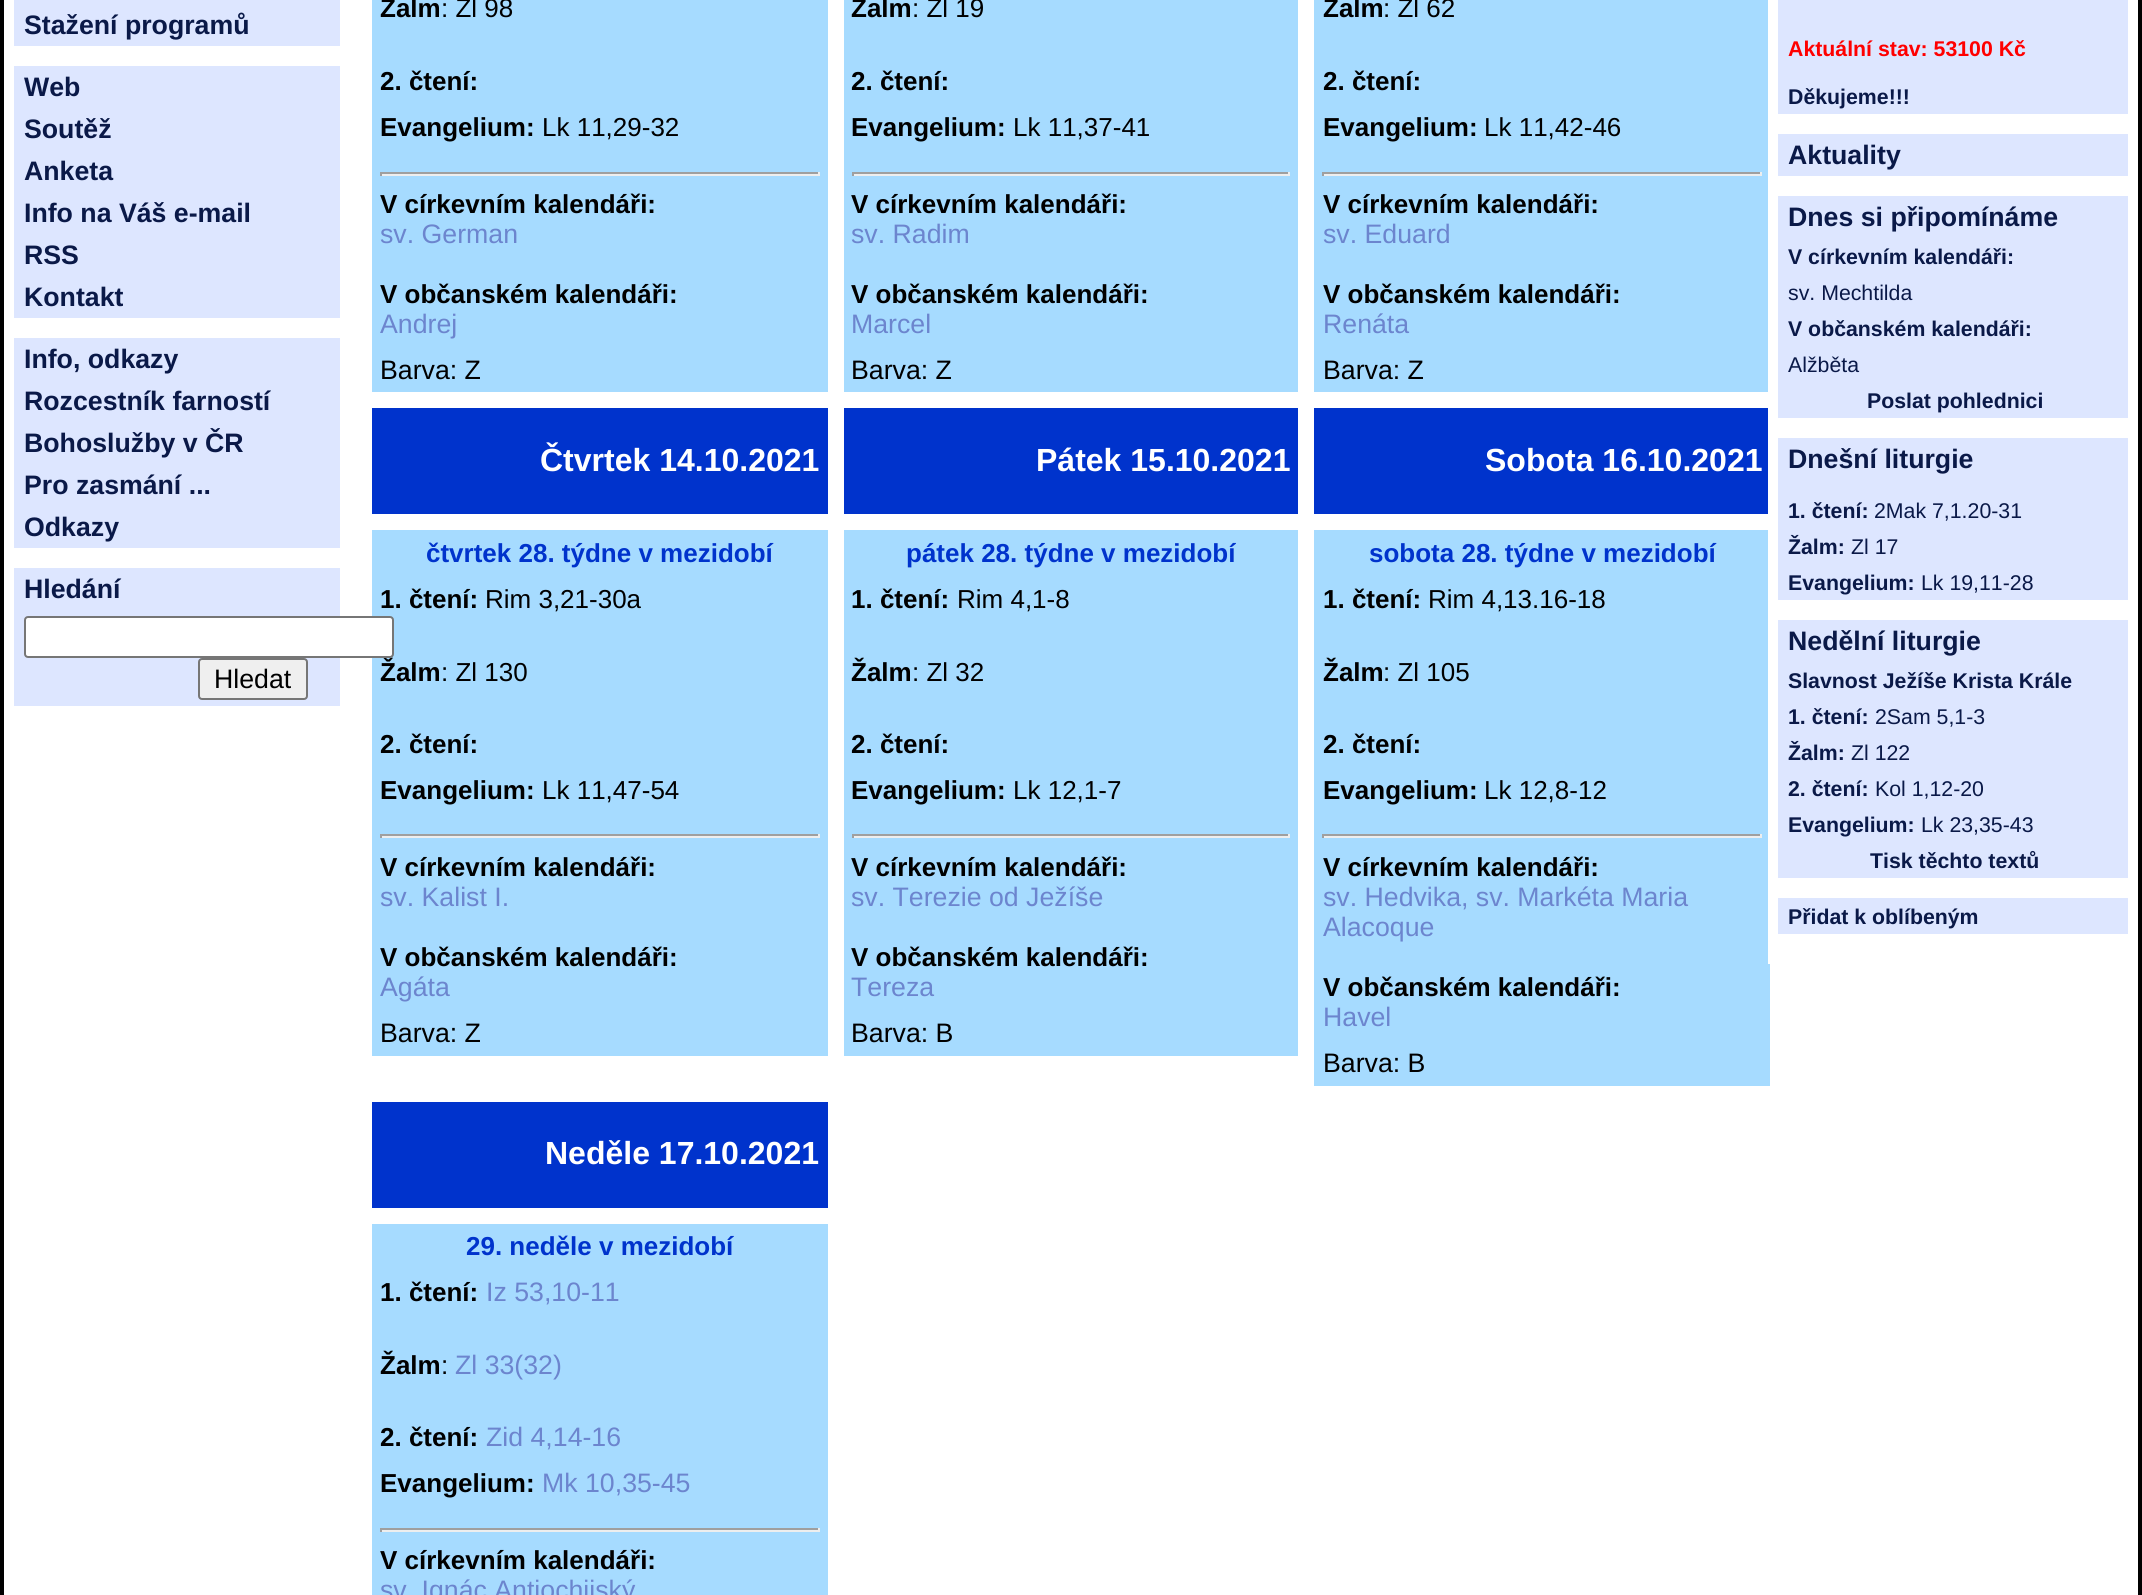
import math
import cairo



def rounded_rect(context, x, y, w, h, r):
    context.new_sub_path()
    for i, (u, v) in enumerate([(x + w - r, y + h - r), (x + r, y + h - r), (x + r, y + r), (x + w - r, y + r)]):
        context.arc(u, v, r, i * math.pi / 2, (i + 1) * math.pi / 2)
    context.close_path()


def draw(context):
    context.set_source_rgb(1, 1, 1)
    context.paint()
    context.set_source_rgb(221 / 255, 230 / 255, 1)
    context.rectangle(14, 0, 326, 46)
    context.fill()
    context.rectangle(14, 66, 326, 252)
    context.fill()
    context.rectangle(14, 338, 326, 210)
    context.fill()
    context.rectangle(14, 568, 326, 138)
    context.fill()
    context.set_source_rgb(239 / 255, 239 / 255, 239 / 255)
    rounded_rect(context, 199, 659, 108, 40, 3)
    context.fill_preserve()
    context.set_source_rgb(118 / 255, 118 / 255, 118 / 255)
    context.stroke()
    context.set_source_rgb(0, 0, 0)
    context.rectangle(2138, 0, 4, 1595)
    context.fill()
    context.rectangle(0, 0, 4, 1595)
    context.fill()
    context.set_source_rgb(166 / 255, 219 / 255, 1)
    context.rectangle(372, 0, 456, 392)
    context.fill()
    context.set_source_rgb(159 / 255, 159 / 255, 159 / 255)
    context.rectangle(380, 172, 440, 2)
    context.fill()
    context.set_source_rgb(238 / 255, 238 / 255, 238 / 255)
    context.rectangle(818, 172, 2, 4)
    context.fill()
    context.rectangle(380, 174, 440, 2)
    context.fill()
    context.set_source_rgb(159 / 255, 159 / 255, 159 / 255)
    context.rectangle(380, 172, 2, 4)
    context.fill()
    context.set_source_rgb(166 / 255, 219 / 255, 1)
    context.rectangle(844, 0, 454, 392)
    context.fill()
    context.set_source_rgb(159 / 255, 159 / 255, 159 / 255)
    context.rectangle(852, 172, 438, 2)
    context.fill()
    context.set_source_rgb(238 / 255, 238 / 255, 238 / 255)
    context.rectangle(1288, 172, 2, 4)
    context.fill()
    context.rectangle(852, 174, 438, 2)
    context.fill()
    context.set_source_rgb(159 / 255, 159 / 255, 159 / 255)
    context.rectangle(852, 172, 2, 4)
    context.fill()
    context.set_source_rgb(166 / 255, 219 / 255, 1)
    context.rectangle(1314, 0, 454, 392)
    context.fill()
    context.set_source_rgb(159 / 255, 159 / 255, 159 / 255)
    context.rectangle(1322, 172, 440, 2)
    context.fill()
    context.set_source_rgb(238 / 255, 238 / 255, 238 / 255)
    context.rectangle(1760, 172, 2, 4)
    context.fill()
    context.rectangle(1322, 174, 440, 2)
    context.fill()
    context.set_source_rgb(159 / 255, 159 / 255, 159 / 255)
    context.rectangle(1322, 172, 2, 4)
    context.fill()
    context.set_source_rgb(0, 51 / 255, 204 / 255)
    context.rectangle(372, 408, 456, 106)
    context.fill()
    context.set_source_rgb(166 / 255, 219 / 255, 1)
    context.rectangle(372, 530, 456, 526)
    context.fill()
    context.set_source_rgb(159 / 255, 159 / 255, 159 / 255)
    context.rectangle(380, 834, 440, 2)
    context.fill()
    context.set_source_rgb(238 / 255, 238 / 255, 238 / 255)
    context.rectangle(818, 834, 2, 4)
    context.fill()
    context.rectangle(380, 836, 440, 2)
    context.fill()
    context.set_source_rgb(159 / 255, 159 / 255, 159 / 255)
    context.rectangle(380, 834, 2, 4)
    context.fill()
    context.set_source_rgb(0, 51 / 255, 204 / 255)
    context.rectangle(844, 408, 454, 106)
    context.fill()
    context.set_source_rgb(166 / 255, 219 / 255, 1)
    context.rectangle(844, 530, 454, 526)
    context.fill()
    context.set_source_rgb(159 / 255, 159 / 255, 159 / 255)
    context.rectangle(852, 834, 438, 2)
    context.fill()
    context.set_source_rgb(238 / 255, 238 / 255, 238 / 255)
    context.rectangle(1288, 834, 2, 4)
    context.fill()
    context.rectangle(852, 836, 438, 2)
    context.fill()
    context.set_source_rgb(159 / 255, 159 / 255, 159 / 255)
    context.rectangle(852, 834, 2, 4)
    context.fill()
    context.set_source_rgb(0, 51 / 255, 204 / 255)
    context.rectangle(1314, 408, 454, 106)
    context.fill()
    context.set_source_rgb(166 / 255, 219 / 255, 1)
    context.rectangle(1314, 530, 454, 284)
    context.fill()
    context.rectangle(1314, 814, 456, 272)
    context.fill()
    context.set_source_rgb(159 / 255, 159 / 255, 159 / 255)
    context.rectangle(1322, 834, 440, 2)
    context.fill()
    context.set_source_rgb(238 / 255, 238 / 255, 238 / 255)
    context.rectangle(1760, 834, 2, 4)
    context.fill()
    context.rectangle(1322, 836, 440, 2)
    context.fill()
    context.set_source_rgb(159 / 255, 159 / 255, 159 / 255)
    context.rectangle(1322, 834, 2, 4)
    context.fill()
    context.set_source_rgb(0, 51 / 255, 204 / 255)
    context.rectangle(372, 1102, 456, 106)
    context.fill()
    context.set_source_rgb(166 / 255, 219 / 255, 1)
    context.rectangle(372, 1224, 456, 371)
    context.fill()
    context.set_source_rgb(159 / 255, 159 / 255, 159 / 255)
    context.rectangle(380, 1528, 440, 2)
    context.fill()
    context.set_source_rgb(238 / 255, 238 / 255, 238 / 255)
    context.rectangle(818, 1528, 2, 4)
    context.fill()
    context.rectangle(380, 1530, 440, 2)
    context.fill()
    context.set_source_rgb(159 / 255, 159 / 255, 159 / 255)
    context.rectangle(380, 1528, 2, 4)
    context.fill()
    context.set_source_rgb(1, 1, 1)
    context.rectangle(1768, 814, 2, 150)
    context.fill()
    context.set_source_rgb(221 / 255, 230 / 255, 1)
    context.rectangle(1778, 0, 350, 114)
    context.fill()
    context.rectangle(1778, 134, 350, 42)
    context.fill()
    context.rectangle(1778, 196, 350, 222)
    context.fill()
    context.rectangle(1778, 438, 350, 162)
    context.fill()
    context.rectangle(1778, 620, 350, 258)
    context.fill()
    context.rectangle(1778, 898, 350, 36)
    context.fill()
    context.select_font_face("Liberation Sans", cairo.FontSlant.NORMAL, cairo.FontWeight.BOLD)
    context.set_font_size(26.7)
    context.set_source_rgb(10 / 255, 25 / 255, 72 / 255)
    context.move_to(24, 34)
    context.show_text("Stažení programů")
    context.move_to(24, 96)
    context.show_text("Web")
    context.move_to(24, 138)
    context.show_text("Soutěž")
    context.move_to(24, 180)
    context.show_text("Anketa")
    context.move_to(24, 222)
    context.show_text("Info na Váš e-mail")
    context.move_to(24, 264)
    context.show_text("RSS")
    context.move_to(24, 306)
    context.show_text("Kontakt")
    context.move_to(24, 368)
    context.show_text("Info, odkazy")
    context.move_to(24, 410)
    context.show_text("Rozcestník farností")
    context.move_to(24, 452)
    context.show_text("Bohoslužby v ČR")
    context.move_to(24, 494)
    context.show_text("Pro zasmání ...")
    context.move_to(24, 536)
    context.show_text("Odkazy")
    context.move_to(24, 598)
    context.show_text("Hledání")
    context.select_font_face("Liberation Sans")
    context.set_source_rgb(0, 0, 0)
    context.move_to(214, 688)
    context.show_text("Hledat")
    context.select_font_face("Liberation Sans", cairo.FontSlant.NORMAL, cairo.FontWeight.BOLD)
    context.set_font_size(26)
    context.move_to(380, 17)
    context.show_text("Žalm")
    context.select_font_face("Liberation Sans")
    context.move_to(441, 17)
    context.show_text(": Zl 98")
    context.select_font_face("Liberation Sans", cairo.FontSlant.NORMAL, cairo.FontWeight.BOLD)
    context.move_to(380, 90)
    context.show_text("2. čtení:")
    context.move_to(380, 136)
    context.show_text("Evangelium:")
    context.select_font_face("Liberation Sans")
    context.move_to(542, 136)
    context.show_text("Lk 11,29-32")
    context.select_font_face("Liberation Sans", cairo.FontSlant.NORMAL, cairo.FontWeight.BOLD)
    context.move_to(380, 213)
    context.show_text("V církevním kalendáři:")
    context.select_font_face("Liberation Sans")
    context.set_font_size(26.7)
    context.set_source_rgb(108 / 255, 133 / 255, 206 / 255)
    context.move_to(380, 243)
    context.show_text("sv. German")
    context.select_font_face("Liberation Sans", cairo.FontSlant.NORMAL, cairo.FontWeight.BOLD)
    context.set_font_size(26)
    context.set_source_rgb(0, 0, 0)
    context.move_to(380, 303)
    context.show_text("V občanském kalendáři:")
    context.select_font_face("Liberation Sans")
    context.set_font_size(26.7)
    context.set_source_rgb(108 / 255, 133 / 255, 206 / 255)
    context.move_to(380, 333)
    context.show_text("Andrej")
    context.set_source_rgb(0, 0, 0)
    context.move_to(380, 379)
    context.show_text("Barva: Z")
    context.select_font_face("Liberation Sans", cairo.FontSlant.NORMAL, cairo.FontWeight.BOLD)
    context.set_font_size(26)
    context.move_to(851, 17)
    context.show_text("Žalm")
    context.select_font_face("Liberation Sans")
    context.move_to(912, 17)
    context.show_text(": Zl 19")
    context.select_font_face("Liberation Sans", cairo.FontSlant.NORMAL, cairo.FontWeight.BOLD)
    context.move_to(851, 90)
    context.show_text("2. čtení:")
    context.move_to(851, 136)
    context.show_text("Evangelium:")
    context.select_font_face("Liberation Sans")
    context.move_to(1013, 136)
    context.show_text("Lk 11,37-41")
    context.select_font_face("Liberation Sans", cairo.FontSlant.NORMAL, cairo.FontWeight.BOLD)
    context.move_to(851, 213)
    context.show_text("V církevním kalendáři:")
    context.select_font_face("Liberation Sans")
    context.set_font_size(26.7)
    context.set_source_rgb(108 / 255, 133 / 255, 206 / 255)
    context.move_to(851, 243)
    context.show_text("sv. Radim")
    context.select_font_face("Liberation Sans", cairo.FontSlant.NORMAL, cairo.FontWeight.BOLD)
    context.set_font_size(26)
    context.set_source_rgb(0, 0, 0)
    context.move_to(851, 303)
    context.show_text("V občanském kalendáři:")
    context.select_font_face("Liberation Sans")
    context.set_font_size(26.7)
    context.set_source_rgb(108 / 255, 133 / 255, 206 / 255)
    context.move_to(851, 333)
    context.show_text("Marcel")
    context.set_source_rgb(0, 0, 0)
    context.move_to(851, 379)
    context.show_text("Barva: Z")
    context.select_font_face("Liberation Sans", cairo.FontSlant.NORMAL, cairo.FontWeight.BOLD)
    context.set_font_size(26)
    context.move_to(1323, 17)
    context.show_text("Žalm")
    context.select_font_face("Liberation Sans")
    context.move_to(1383, 17)
    context.show_text(": Zl 62")
    context.select_font_face("Liberation Sans", cairo.FontSlant.NORMAL, cairo.FontWeight.BOLD)
    context.move_to(1323, 90)
    context.show_text("2. čtení:")
    context.move_to(1323, 136)
    context.show_text("Evangelium:")
    context.select_font_face("Liberation Sans")
    context.move_to(1484, 136)
    context.show_text("Lk 11,42-46")
    context.select_font_face("Liberation Sans", cairo.FontSlant.NORMAL, cairo.FontWeight.BOLD)
    context.move_to(1323, 213)
    context.show_text("V církevním kalendáři:")
    context.select_font_face("Liberation Sans")
    context.set_font_size(26.7)
    context.set_source_rgb(108 / 255, 133 / 255, 206 / 255)
    context.move_to(1323, 243)
    context.show_text("sv. Eduard")
    context.select_font_face("Liberation Sans", cairo.FontSlant.NORMAL, cairo.FontWeight.BOLD)
    context.set_font_size(26)
    context.set_source_rgb(0, 0, 0)
    context.move_to(1323, 303)
    context.show_text("V občanském kalendáři:")
    context.select_font_face("Liberation Sans")
    context.set_font_size(26.7)
    context.set_source_rgb(108 / 255, 133 / 255, 206 / 255)
    context.move_to(1323, 333)
    context.show_text("Renáta")
    context.set_source_rgb(0, 0, 0)
    context.move_to(1323, 379)
    context.show_text("Barva: Z")
    context.select_font_face("Liberation Sans", cairo.FontSlant.NORMAL, cairo.FontWeight.BOLD)
    context.set_font_size(32)
    context.set_source_rgb(1, 1, 1)
    context.move_to(540, 471)
    context.show_text("Čtvrtek 14.10.2021")
    context.set_font_size(26)
    context.set_source_rgb(0, 51 / 255, 204 / 255)
    context.move_to(426, 562)
    context.show_text("čtvrtek 28. týdne v mezidobí")
    context.set_source_rgb(0, 0, 0)
    context.move_to(380, 608)
    context.show_text("1. čtení:")
    context.select_font_face("Liberation Sans")
    context.move_to(485, 608)
    context.show_text("Rim 3,21-30a")
    context.select_font_face("Liberation Sans", cairo.FontSlant.NORMAL, cairo.FontWeight.BOLD)
    context.move_to(380, 681)
    context.show_text("Žalm")
    context.set_source_rgb(1, 1, 1)
    rounded_rect(context, 25, 617, 368, 40, 3)
    context.fill_preserve()
    context.set_source_rgb(118 / 255, 118 / 255, 118 / 255)
    context.stroke()
    context.select_font_face("Liberation Sans")
    context.set_source_rgb(0, 0, 0)
    context.move_to(441, 681)
    context.show_text(": Zl 130")
    context.select_font_face("Liberation Sans", cairo.FontSlant.NORMAL, cairo.FontWeight.BOLD)
    context.move_to(380, 753)
    context.show_text("2. čtení:")
    context.move_to(380, 799)
    context.show_text("Evangelium:")
    context.select_font_face("Liberation Sans")
    context.move_to(542, 799)
    context.show_text("Lk 11,47-54")
    context.select_font_face("Liberation Sans", cairo.FontSlant.NORMAL, cairo.FontWeight.BOLD)
    context.move_to(380, 876)
    context.show_text("V církevním kalendáři:")
    context.select_font_face("Liberation Sans")
    context.set_font_size(26.7)
    context.set_source_rgb(108 / 255, 133 / 255, 206 / 255)
    context.move_to(380, 906)
    context.show_text("sv. Kalist I.")
    context.select_font_face("Liberation Sans", cairo.FontSlant.NORMAL, cairo.FontWeight.BOLD)
    context.set_font_size(26)
    context.set_source_rgb(0, 0, 0)
    context.move_to(380, 966)
    context.show_text("V občanském kalendáři:")
    context.select_font_face("Liberation Sans")
    context.set_font_size(26.7)
    context.set_source_rgb(108 / 255, 133 / 255, 206 / 255)
    context.move_to(380, 996)
    context.show_text("Agáta")
    context.set_source_rgb(0, 0, 0)
    context.move_to(380, 1042)
    context.show_text("Barva: Z")
    context.select_font_face("Liberation Sans", cairo.FontSlant.NORMAL, cairo.FontWeight.BOLD)
    context.set_font_size(32)
    context.set_source_rgb(1, 1, 1)
    context.move_to(1036, 471)
    context.show_text("Pátek 15.10.2021")
    context.set_font_size(26)
    context.set_source_rgb(0, 51 / 255, 204 / 255)
    context.move_to(906, 562)
    context.show_text("pátek 28. týdne v mezidobí")
    context.set_source_rgb(0, 0, 0)
    context.move_to(851, 608)
    context.show_text("1. čtení:")
    context.select_font_face("Liberation Sans")
    context.move_to(957, 608)
    context.show_text("Rim 4,1-8")
    context.select_font_face("Liberation Sans", cairo.FontSlant.NORMAL, cairo.FontWeight.BOLD)
    context.move_to(851, 681)
    context.show_text("Žalm")
    context.select_font_face("Liberation Sans")
    context.move_to(912, 681)
    context.show_text(": Zl 32")
    context.select_font_face("Liberation Sans", cairo.FontSlant.NORMAL, cairo.FontWeight.BOLD)
    context.move_to(851, 753)
    context.show_text("2. čtení:")
    context.move_to(851, 799)
    context.show_text("Evangelium:")
    context.select_font_face("Liberation Sans")
    context.move_to(1013, 799)
    context.show_text("Lk 12,1-7")
    context.select_font_face("Liberation Sans", cairo.FontSlant.NORMAL, cairo.FontWeight.BOLD)
    context.move_to(851, 876)
    context.show_text("V církevním kalendáři:")
    context.select_font_face("Liberation Sans")
    context.set_font_size(26.7)
    context.set_source_rgb(108 / 255, 133 / 255, 206 / 255)
    context.move_to(851, 906)
    context.show_text("sv. Terezie od Ježíše")
    context.select_font_face("Liberation Sans", cairo.FontSlant.NORMAL, cairo.FontWeight.BOLD)
    context.set_font_size(26)
    context.set_source_rgb(0, 0, 0)
    context.move_to(851, 966)
    context.show_text("V občanském kalendáři:")
    context.select_font_face("Liberation Sans")
    context.set_font_size(26.7)
    context.set_source_rgb(108 / 255, 133 / 255, 206 / 255)
    context.move_to(851, 996)
    context.show_text("Tereza")
    context.set_source_rgb(0, 0, 0)
    context.move_to(851, 1042)
    context.show_text("Barva: B")
    context.select_font_face("Liberation Sans", cairo.FontSlant.NORMAL, cairo.FontWeight.BOLD)
    context.set_font_size(32)
    context.set_source_rgb(1, 1, 1)
    context.move_to(1485, 471)
    context.show_text("Sobota 16.10.2021")
    context.set_font_size(26)
    context.set_source_rgb(0, 51 / 255, 204 / 255)
    context.move_to(1369, 562)
    context.show_text("sobota 28. týdne v mezidobí")
    context.set_source_rgb(0, 0, 0)
    context.move_to(1323, 608)
    context.show_text("1. čtení:")
    context.select_font_face("Liberation Sans")
    context.move_to(1428, 608)
    context.show_text("Rim 4,13.16-18")
    context.select_font_face("Liberation Sans", cairo.FontSlant.NORMAL, cairo.FontWeight.BOLD)
    context.move_to(1323, 681)
    context.show_text("Žalm")
    context.select_font_face("Liberation Sans")
    context.move_to(1383, 681)
    context.show_text(": Zl 105")
    context.select_font_face("Liberation Sans", cairo.FontSlant.NORMAL, cairo.FontWeight.BOLD)
    context.move_to(1323, 753)
    context.show_text("2. čtení:")
    context.move_to(1323, 799)
    context.show_text("Evangelium:")
    context.select_font_face("Liberation Sans")
    context.move_to(1484, 799)
    context.show_text("Lk 12,8-12")
    context.select_font_face("Liberation Sans", cairo.FontSlant.NORMAL, cairo.FontWeight.BOLD)
    context.move_to(1323, 876)
    context.show_text("V církevním kalendáři:")
    context.select_font_face("Liberation Sans")
    context.set_font_size(26.7)
    context.set_source_rgb(108 / 255, 133 / 255, 206 / 255)
    context.move_to(1323, 906)
    context.show_text("sv. Hedvika, sv. Markéta Maria")
    context.move_to(1323, 936)
    context.show_text("Alacoque")
    context.select_font_face("Liberation Sans", cairo.FontSlant.NORMAL, cairo.FontWeight.BOLD)
    context.set_font_size(26)
    context.set_source_rgb(0, 0, 0)
    context.move_to(1323, 996)
    context.show_text("V občanském kalendáři:")
    context.select_font_face("Liberation Sans")
    context.set_font_size(26.7)
    context.set_source_rgb(108 / 255, 133 / 255, 206 / 255)
    context.move_to(1323, 1026)
    context.show_text("Havel")
    context.set_source_rgb(0, 0, 0)
    context.move_to(1323, 1072)
    context.show_text("Barva: B")
    context.select_font_face("Liberation Sans", cairo.FontSlant.NORMAL, cairo.FontWeight.BOLD)
    context.set_font_size(32)
    context.set_source_rgb(1, 1, 1)
    context.move_to(545, 1164)
    context.show_text("Neděle 17.10.2021")
    context.set_font_size(26)
    context.set_source_rgb(0, 51 / 255, 204 / 255)
    context.move_to(466, 1255)
    context.show_text("29. neděle v mezidobí")
    context.set_source_rgb(0, 0, 0)
    context.move_to(380, 1301)
    context.show_text("1. čtení:")
    context.select_font_face("Liberation Sans")
    context.set_font_size(26.7)
    context.set_source_rgb(108 / 255, 133 / 255, 206 / 255)
    context.move_to(486, 1301)
    context.show_text("Iz 53,10-11")
    context.select_font_face("Liberation Sans", cairo.FontSlant.NORMAL, cairo.FontWeight.BOLD)
    context.set_font_size(26)
    context.set_source_rgb(0, 0, 0)
    context.move_to(380, 1374)
    context.show_text("Žalm")
    context.select_font_face("Liberation Sans")
    context.move_to(441, 1374)
    context.show_text(":")
    context.set_font_size(26.7)
    context.set_source_rgb(108 / 255, 133 / 255, 206 / 255)
    context.move_to(455, 1374)
    context.show_text("Zl 33(32)")
    context.select_font_face("Liberation Sans", cairo.FontSlant.NORMAL, cairo.FontWeight.BOLD)
    context.set_font_size(26)
    context.set_source_rgb(0, 0, 0)
    context.move_to(380, 1446)
    context.show_text("2. čtení:")
    context.select_font_face("Liberation Sans")
    context.set_font_size(26.7)
    context.set_source_rgb(108 / 255, 133 / 255, 206 / 255)
    context.move_to(486, 1446)
    context.show_text("Zid 4,14-16")
    context.select_font_face("Liberation Sans", cairo.FontSlant.NORMAL, cairo.FontWeight.BOLD)
    context.set_font_size(26)
    context.set_source_rgb(0, 0, 0)
    context.move_to(380, 1492)
    context.show_text("Evangelium:")
    context.select_font_face("Liberation Sans")
    context.set_font_size(26.7)
    context.set_source_rgb(108 / 255, 133 / 255, 206 / 255)
    context.move_to(542, 1492)
    context.show_text("Mk 10,35-45")
    context.select_font_face("Liberation Sans", cairo.FontSlant.NORMAL, cairo.FontWeight.BOLD)
    context.set_font_size(26)
    context.set_source_rgb(0, 0, 0)
    context.move_to(380, 1569)
    context.show_text("V církevním kalendáři:")
    context.select_font_face("Liberation Sans")
    context.set_font_size(26.7)
    context.set_source_rgb(108 / 255, 133 / 255, 206 / 255)
    context.move_to(380, 1599)
    context.show_text("sv. Ignác Antiochijský")
    context.select_font_face("Liberation Sans", cairo.FontSlant.NORMAL, cairo.FontWeight.BOLD)
    context.set_font_size(21.3)
    context.set_source_rgb(1, 0, 0)
    context.move_to(1788, 56)
    context.show_text("Aktuální stav: 53100 Kč")
    context.set_source_rgb(10 / 255, 25 / 255, 72 / 255)
    context.move_to(1788, 104)
    context.show_text("Děkujeme!!!")
    context.set_font_size(26.7)
    context.move_to(1788, 164)
    context.show_text("Aktuality")
    context.move_to(1788, 226)
    context.show_text("Dnes si připomínáme")
    context.set_font_size(21.3)
    context.move_to(1788, 264)
    context.show_text("V církevním kalendáři:")
    context.select_font_face("Liberation Sans")
    context.move_to(1788, 300)
    context.show_text("sv. Mechtilda")
    context.select_font_face("Liberation Sans", cairo.FontSlant.NORMAL, cairo.FontWeight.BOLD)
    context.move_to(1788, 336)
    context.show_text("V občanském kalendáři:")
    context.select_font_face("Liberation Sans")
    context.move_to(1788, 372)
    context.show_text("Alžběta")
    context.select_font_face("Liberation Sans", cairo.FontSlant.NORMAL, cairo.FontWeight.BOLD)
    context.move_to(1867, 408)
    context.show_text("Poslat pohlednici")
    context.set_font_size(26.7)
    context.move_to(1788, 468)
    context.show_text("Dnešní liturgie")
    context.set_font_size(21.3)
    context.move_to(1788, 518)
    context.show_text("1. čtení:")
    context.select_font_face("Liberation Sans")
    context.move_to(1874, 518)
    context.show_text("2Mak 7,1.20-31")
    context.select_font_face("Liberation Sans", cairo.FontSlant.NORMAL, cairo.FontWeight.BOLD)
    context.move_to(1788, 554)
    context.show_text("Žalm:")
    context.select_font_face("Liberation Sans")
    context.move_to(1851, 554)
    context.show_text("Zl 17")
    context.select_font_face("Liberation Sans", cairo.FontSlant.NORMAL, cairo.FontWeight.BOLD)
    context.move_to(1788, 590)
    context.show_text("Evangelium:")
    context.select_font_face("Liberation Sans")
    context.move_to(1921, 590)
    context.show_text("Lk 19,11-28")
    context.select_font_face("Liberation Sans", cairo.FontSlant.NORMAL, cairo.FontWeight.BOLD)
    context.set_font_size(26.7)
    context.move_to(1788, 650)
    context.show_text("Nedělní liturgie")
    context.set_font_size(21.3)
    context.move_to(1788, 688)
    context.show_text("Slavnost Ježíše Krista Krále")
    context.move_to(1788, 724)
    context.show_text("1. čtení:")
    context.select_font_face("Liberation Sans")
    context.move_to(1875, 724)
    context.show_text("2Sam 5,1-3")
    context.select_font_face("Liberation Sans", cairo.FontSlant.NORMAL, cairo.FontWeight.BOLD)
    context.move_to(1788, 760)
    context.show_text("Žalm:")
    context.select_font_face("Liberation Sans")
    context.move_to(1851, 760)
    context.show_text("Zl 122")
    context.select_font_face("Liberation Sans", cairo.FontSlant.NORMAL, cairo.FontWeight.BOLD)
    context.move_to(1788, 796)
    context.show_text("2. čtení:")
    context.select_font_face("Liberation Sans")
    context.move_to(1875, 796)
    context.show_text("Kol 1,12-20")
    context.select_font_face("Liberation Sans", cairo.FontSlant.NORMAL, cairo.FontWeight.BOLD)
    context.move_to(1788, 832)
    context.show_text("Evangelium:")
    context.select_font_face("Liberation Sans")
    context.move_to(1921, 832)
    context.show_text("Lk 23,35-43")
    context.select_font_face("Liberation Sans", cairo.FontSlant.NORMAL, cairo.FontWeight.BOLD)
    context.move_to(1870, 868)
    context.show_text("Tisk těchto textů")
    context.move_to(1788, 924)
    context.show_text("Přidat k oblíbeným")


surface = cairo.ImageSurface(cairo.Format.RGB24, 2142, 1595)
context = cairo.Context(surface)
options = cairo.FontOptions()
options.set_hint_metrics(cairo.HintMetrics.OFF)
options.set_hint_style(cairo.HintStyle.NONE)
context.set_font_options(options)
context.set_miter_limit(4)
draw(context)
surface.write_to_png("out.png")
